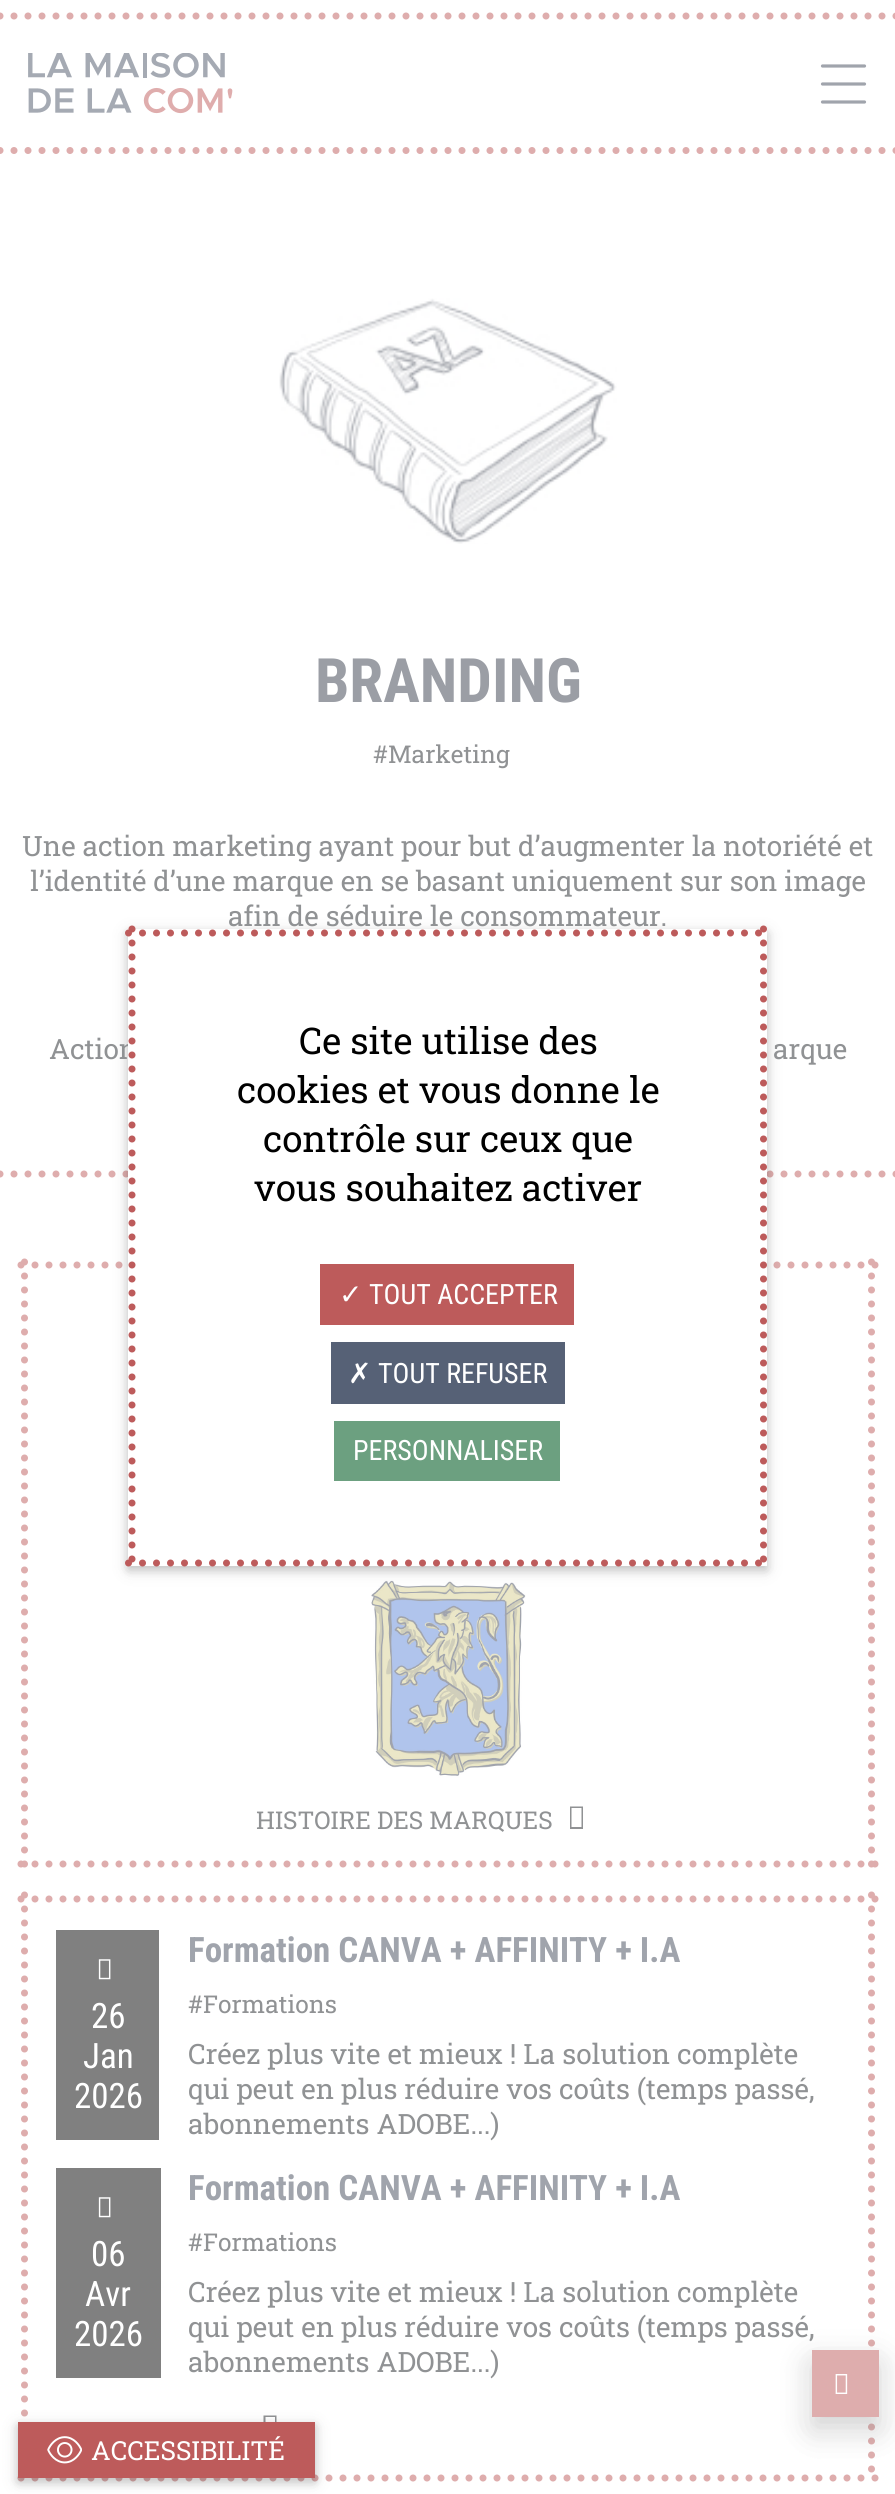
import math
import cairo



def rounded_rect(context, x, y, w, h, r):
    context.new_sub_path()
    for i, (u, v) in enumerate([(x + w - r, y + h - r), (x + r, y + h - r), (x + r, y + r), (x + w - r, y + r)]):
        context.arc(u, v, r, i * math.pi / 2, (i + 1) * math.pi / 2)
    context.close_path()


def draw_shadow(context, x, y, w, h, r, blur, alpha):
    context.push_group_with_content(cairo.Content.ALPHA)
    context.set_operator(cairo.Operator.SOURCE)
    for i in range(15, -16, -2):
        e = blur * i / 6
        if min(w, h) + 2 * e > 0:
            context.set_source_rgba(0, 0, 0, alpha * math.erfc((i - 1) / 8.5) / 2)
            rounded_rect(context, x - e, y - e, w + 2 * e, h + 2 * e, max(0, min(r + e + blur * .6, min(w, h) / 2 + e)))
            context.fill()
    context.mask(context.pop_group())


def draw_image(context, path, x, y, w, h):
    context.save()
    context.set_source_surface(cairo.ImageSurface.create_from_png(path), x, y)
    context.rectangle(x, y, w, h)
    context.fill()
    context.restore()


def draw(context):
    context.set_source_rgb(1, 1, 1)
    context.paint()
    context.new_path()
    context.move_to(0, 16)
    context.line_to(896, 16)
    context.set_source_rgb(222 / 255, 173 / 255, 173 / 255)
    context.set_line_width(7)
    context.set_line_cap(cairo.LineCap.ROUND)
    context.set_dash([0, 14])
    context.stroke()
    draw_image(context, "images/1.png", 28, 53, 205, 61)
    context.new_path()
    context.move_to(864.5, 66)
    context.line_to(822.5, 66)
    context.move_to(864.5, 84)
    context.line_to(822.5, 84)
    context.move_to(822.5, 102)
    context.line_to(864.5, 102)
    context.set_source_rgb(160 / 255, 164 / 255, 172 / 255)
    context.set_line_width(3.2)
    context.set_dash([])
    context.stroke()
    context.new_path()
    context.move_to(0, 150.5)
    context.line_to(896, 150.5)
    context.set_source_rgb(222 / 255, 173 / 255, 173 / 255)
    context.set_line_width(7)
    context.set_dash([0, 14])
    context.stroke()
    context.new_path()
    context.move_to(0, 1174)
    context.line_to(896, 1174)
    context.stroke()
    draw_image(context, "images/2.png", 279, 298, 338, 246)
    context.new_path()
    context.move_to(21, 1265)
    context.line_to(875, 1265)
    context.stroke()
    context.new_path()
    context.move_to(871.5, 1262)
    context.line_to(871.5, 1867)
    context.stroke()
    context.new_path()
    context.move_to(21, 1864)
    context.line_to(875, 1864)
    context.stroke()
    context.new_path()
    context.move_to(24.5, 1262)
    context.line_to(24.5, 1867)
    context.stroke()
    draw_image(context, "images/3.png", 371, 1580, 155, 198)
    context.set_source_rgb(144 / 255, 146 / 255, 148 / 255)
    context.new_path()
    context.move_to(570, 1829)
    context.line_to(570, 1806.5)
    context.line_to(583, 1806.5)
    context.line_to(583, 1829)
    context.close_path()
    context.move_to(571.5, 1827)
    context.line_to(581.5, 1827)
    context.line_to(581.5, 1808)
    context.line_to(571.5, 1808)
    context.close_path()
    context.fill()
    context.new_path()
    context.move_to(21, 1899)
    context.line_to(875, 1899)
    context.set_source_rgb(222 / 255, 173 / 255, 173 / 255)
    context.stroke()
    context.new_path()
    context.move_to(871.5, 1895)
    context.line_to(871.5, 2481.5)
    context.stroke()
    context.new_path()
    context.move_to(21, 2478)
    context.line_to(875, 2478)
    context.stroke()
    context.new_path()
    context.move_to(24.5, 1895)
    context.line_to(24.5, 2481.5)
    context.stroke()
    context.set_source_rgb(128 / 255, 128 / 255, 128 / 255)
    context.rectangle(56, 1930, 103, 210)
    context.fill()
    draw_image(context, "images/4.png", 98, 1959, 13, 21)
    context.rectangle(56, 2168, 105, 210)
    context.fill()
    draw_image(context, "images/4.png", 98, 2197, 13, 21)
    context.set_source_rgb(144 / 255, 146 / 255, 148 / 255)
    context.new_path()
    context.move_to(263.5, 2438)
    context.line_to(263.5, 2415.5)
    context.line_to(276.5, 2415.5)
    context.line_to(276.5, 2438)
    context.close_path()
    context.move_to(265.5, 2436)
    context.line_to(275, 2436)
    context.line_to(275, 2417)
    context.line_to(265.5, 2417)
    context.close_path()
    context.fill()
    context.set_source_rgb(0, 0, 0)
    draw_shadow(context, 128, 933, 639, 637, 0, 9, 0.12)
    draw_shadow(context, 128, 933, 639, 637, 0, 4.5, 0.16)
    draw_shadow(context, 18, 2426, 297, 56, 0, 4.5, 0.16)
    draw_shadow(context, 18, 2426, 297, 56, 0, 9, 0.12)
    context.set_source_rgb(189 / 255, 91 / 255, 91 / 255)
    context.rectangle(18, 2422, 297, 56)
    context.fill()
    draw_image(context, "images/5.png", 47, 2436, 35, 28)
    context.set_source_rgb(128 / 255, 128 / 255, 128 / 255)
    draw_shadow(context, 812, 2361, 67, 66, 0, 17.5, 0.19)
    draw_shadow(context, 812, 2364, 67, 67, 0, 15, 0.2)
    context.set_source_rgb(222 / 255, 173 / 255, 173 / 255)
    context.rectangle(812, 2350, 67, 67)
    context.fill()
    draw_image(context, "images/6.png", 835, 2374, 13, 20)
    context.select_font_face("Roboto Condensed", cairo.FontSlant.NORMAL, cairo.FontWeight.BOLD)
    context.set_font_size(61.25)
    context.set_source_rgb(155 / 255, 158 / 255, 165 / 255)
    context.move_to(315, 702)
    context.show_text("BRANDING")
    context.select_font_face("Roboto Slab")
    context.set_font_size(24.5)
    context.set_source_rgb(144 / 255, 146 / 255, 148 / 255)
    context.move_to(373, 763)
    context.show_text("#Marketing")
    context.set_font_size(28)
    context.move_to(22, 856)
    context.show_text("Une action marketing ayant pour but d’augmenter la notoriété et")
    context.move_to(30, 891)
    context.show_text("l’identité d’une marque en se basant uniquement sur son image")
    context.move_to(228, 926)
    context.show_text("afin de séduire le consommateur.")
    context.move_to(49, 1059)
    context.show_text("Action")
    context.move_to(773, 1059)
    context.show_text("arque")
    context.set_font_size(24.5)
    context.move_to(256, 1829)
    context.show_text("HISTOIRE DES MARQUES")
    context.select_font_face("Roboto Condensed")
    context.set_font_size(35)
    context.set_source_rgb(1, 1, 1)
    context.move_to(91, 2028)
    context.show_text("26")
    context.move_to(83, 2068)
    context.show_text("Jan")
    context.move_to(74, 2108)
    context.show_text("2026")
    context.select_font_face("Roboto Condensed", cairo.FontSlant.NORMAL, cairo.FontWeight.BOLD)
    context.set_source_rgb(160 / 255, 164 / 255, 172 / 255)
    context.move_to(188, 1962)
    context.show_text("Formation CANVA + AFFINITY + I.A")
    context.select_font_face("Roboto Slab")
    context.set_font_size(24.5)
    context.set_source_rgb(144 / 255, 146 / 255, 148 / 255)
    context.move_to(188, 2013)
    context.show_text("#Formations")
    context.set_font_size(28)
    context.move_to(188, 2064)
    context.show_text("Créez plus vite et mieux ! La solution complète")
    context.move_to(188, 2099)
    context.show_text("qui peut en plus réduire vos coûts (temps passé,")
    context.move_to(188, 2134)
    context.show_text("abonnements ADOBE...)")
    context.select_font_face("Roboto Condensed")
    context.set_font_size(35)
    context.set_source_rgb(1, 1, 1)
    context.move_to(91, 2266)
    context.show_text("06")
    context.move_to(85, 2306)
    context.show_text("Avr")
    context.move_to(74, 2346)
    context.show_text("2026")
    context.select_font_face("Roboto Condensed", cairo.FontSlant.NORMAL, cairo.FontWeight.BOLD)
    context.set_source_rgb(160 / 255, 164 / 255, 172 / 255)
    context.move_to(188, 2200)
    context.show_text("Formation CANVA + AFFINITY + I.A")
    context.select_font_face("Roboto Slab")
    context.set_font_size(24.5)
    context.set_source_rgb(144 / 255, 146 / 255, 148 / 255)
    context.move_to(188, 2251)
    context.show_text("#Formations")
    context.set_font_size(28)
    context.move_to(188, 2302)
    context.show_text("Créez plus vite et mieux ! La solution complète")
    context.move_to(188, 2337)
    context.show_text("qui peut en plus réduire vos coûts (temps passé,")
    context.move_to(188, 2372)
    context.show_text("abonnements ADOBE...)")
    context.set_source_rgb(1, 1, 1)
    context.rectangle(128, 929, 639, 637)
    context.fill()
    context.new_path()
    context.move_to(128.5, 933)
    context.line_to(767, 933)
    context.set_source_rgb(189 / 255, 91 / 255, 91 / 255)
    context.stroke()
    context.new_path()
    context.move_to(763.5, 929)
    context.line_to(763.5, 1566)
    context.stroke()
    context.new_path()
    context.move_to(128.5, 1563)
    context.line_to(767, 1563)
    context.stroke()
    context.new_path()
    context.move_to(132, 929)
    context.line_to(132, 1566)
    context.stroke()
    context.set_font_size(36.75)
    context.set_source_rgb(0, 0, 0)
    context.move_to(299, 1054)
    context.show_text("Ce site utilise des")
    context.move_to(237, 1103)
    context.show_text("cookies et vous donne le")
    context.move_to(263, 1152)
    context.show_text("contrôle sur ceux que")
    context.move_to(254, 1201)
    context.show_text("vous souhaitez activer")
    context.set_source_rgb(189 / 255, 91 / 255, 91 / 255)
    context.rectangle(320, 1264, 254, 61)
    context.fill()
    context.select_font_face("DejaVu Sans")
    context.set_font_size(28)
    context.set_source_rgb(1, 1, 1)
    context.move_to(339, 1304)
    context.show_text("✓")
    context.select_font_face("Roboto Condensed")
    context.move_to(369, 1304)
    context.show_text("TOUT ACCEPTER")
    context.set_source_rgb(86 / 255, 97 / 255, 118 / 255)
    context.rectangle(331, 1342, 234, 62)
    context.fill()
    context.select_font_face("DejaVu Sans")
    context.set_source_rgb(1, 1, 1)
    context.move_to(348, 1383)
    context.show_text("✗")
    context.select_font_face("Roboto Condensed")
    context.move_to(378, 1383)
    context.show_text("TOUT REFUSER")
    context.set_source_rgb(108 / 255, 160 / 255, 128 / 255)
    context.rectangle(334, 1421, 226, 60)
    context.fill()
    context.set_source_rgb(1, 1, 1)
    context.move_to(353, 1460)
    context.show_text("PERSONNALISER")
    context.select_font_face("Roboto Slab")
    context.set_font_size(26.25)
    context.move_to(91, 2460)
    context.show_text("ACCESSIBILITÉ")


surface = cairo.ImageSurface(cairo.Format.RGB24, 895, 2494)
context = cairo.Context(surface)
options = cairo.FontOptions()
options.set_hint_metrics(cairo.HintMetrics.OFF)
options.set_hint_style(cairo.HintStyle.NONE)
context.set_font_options(options)
context.set_miter_limit(4)
draw(context)
surface.write_to_png("out.png")
